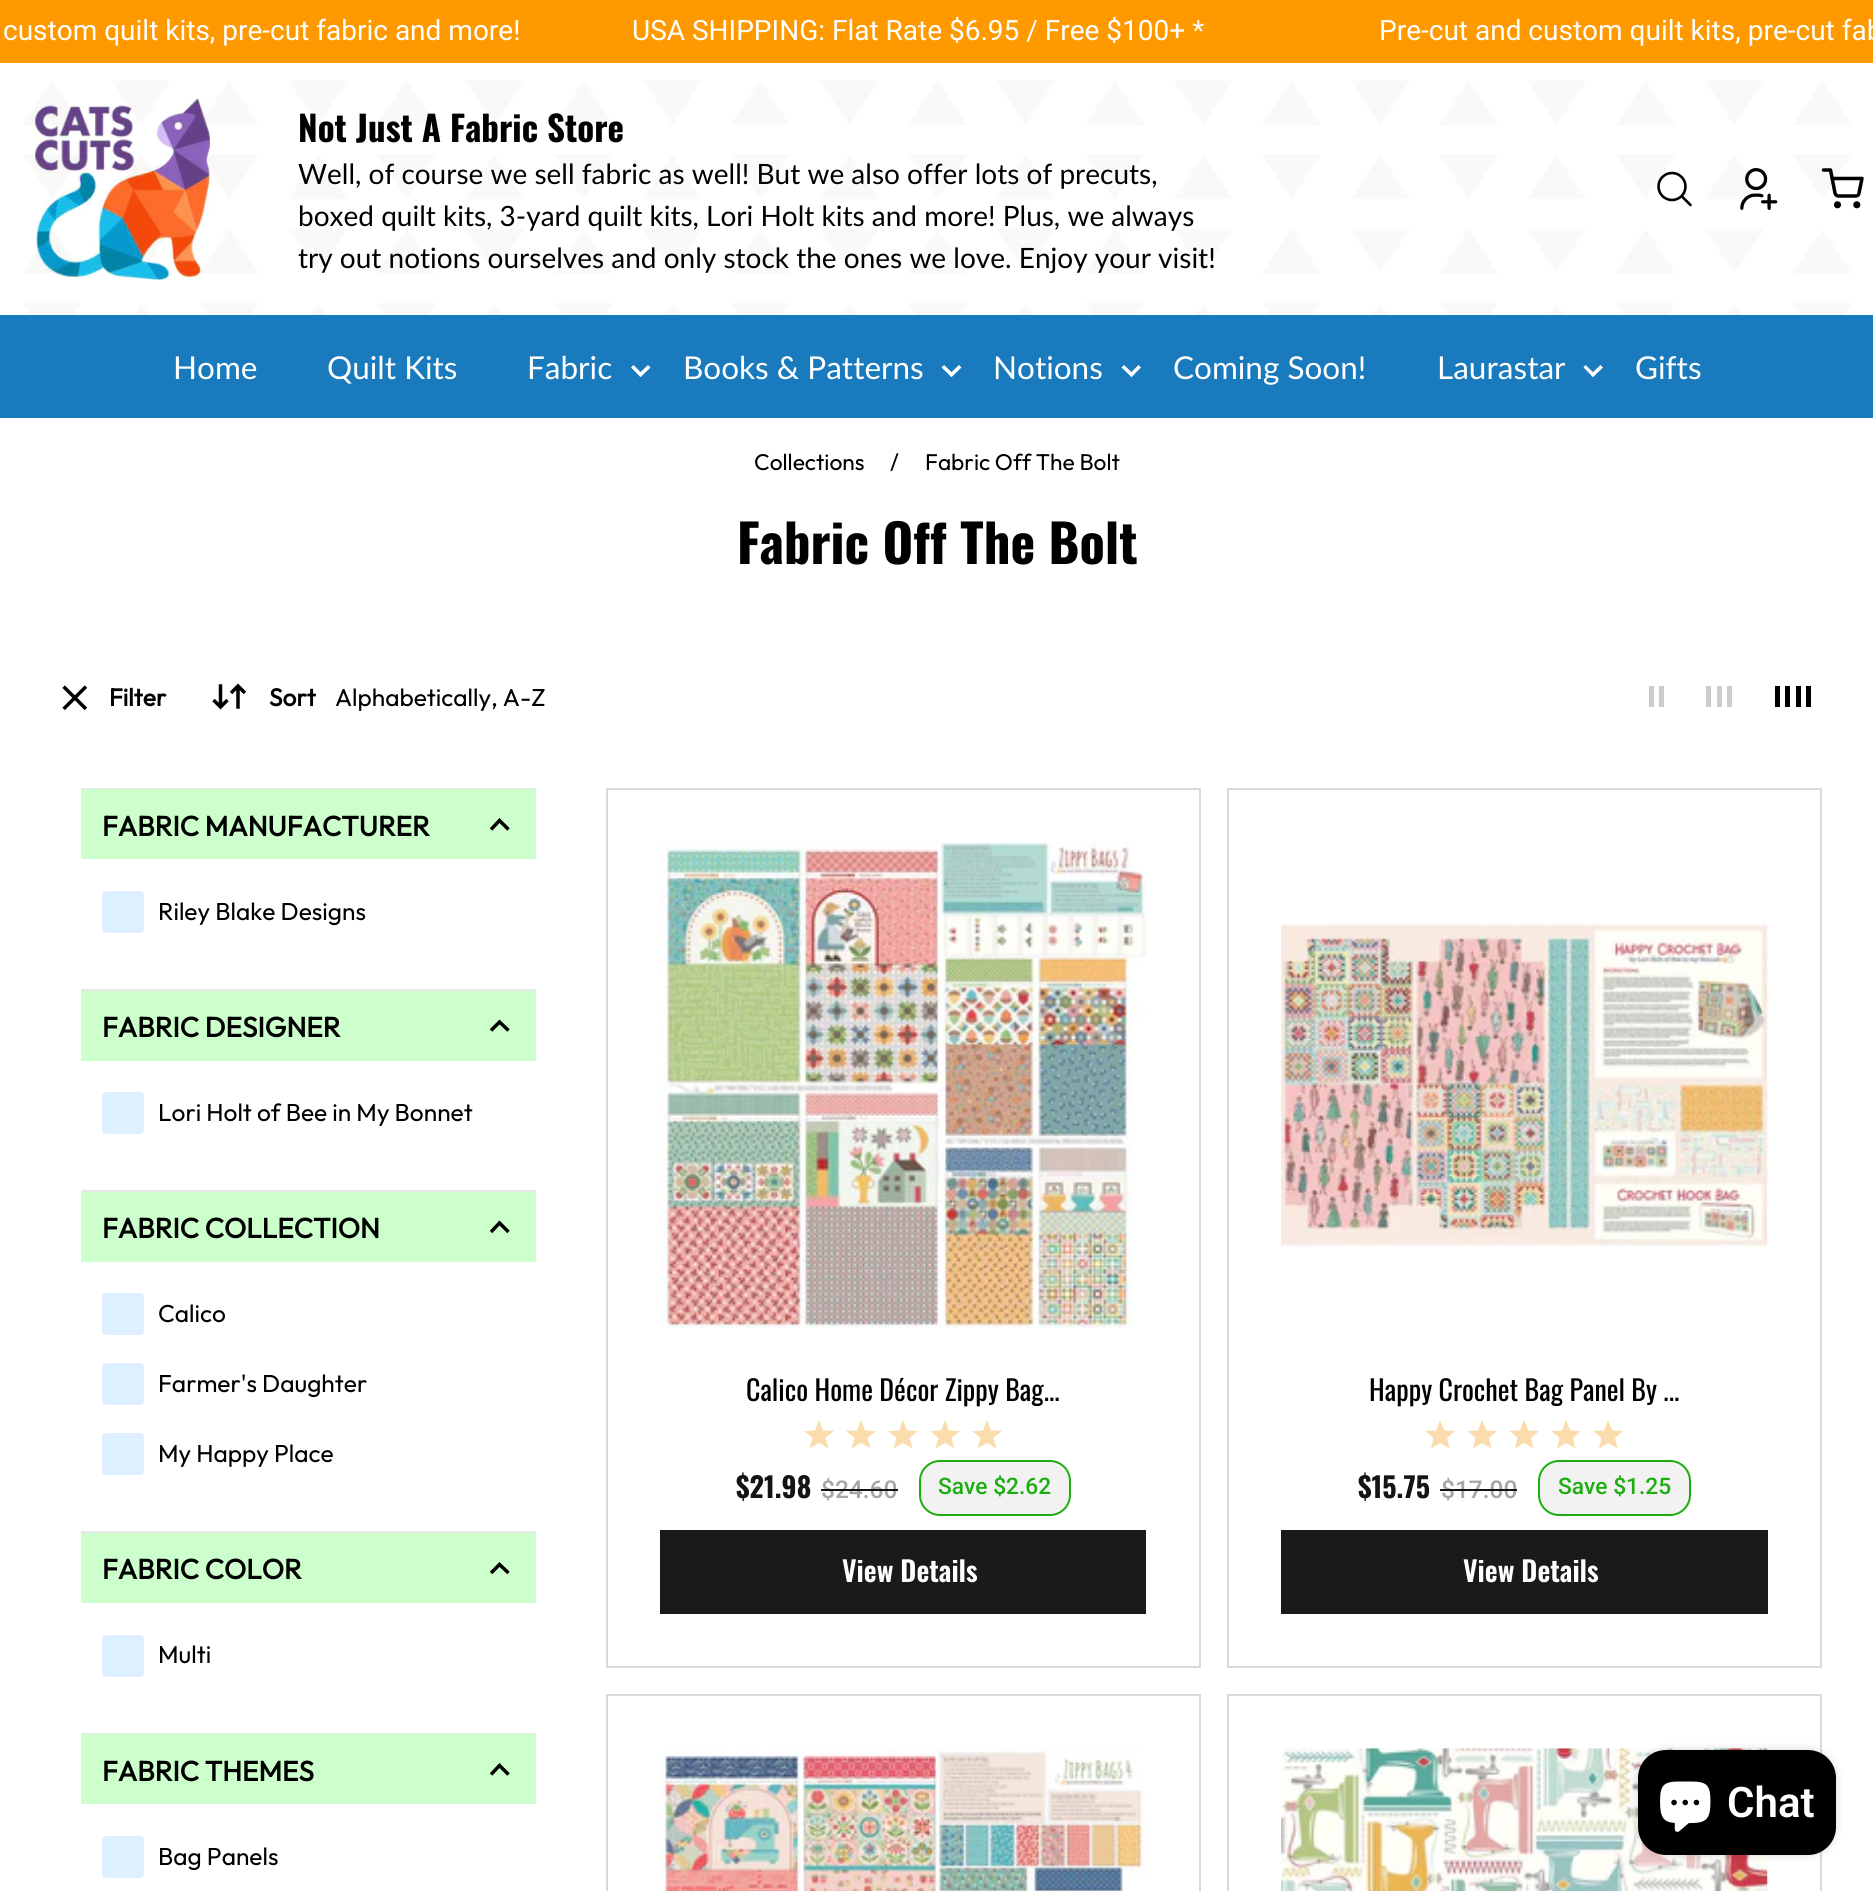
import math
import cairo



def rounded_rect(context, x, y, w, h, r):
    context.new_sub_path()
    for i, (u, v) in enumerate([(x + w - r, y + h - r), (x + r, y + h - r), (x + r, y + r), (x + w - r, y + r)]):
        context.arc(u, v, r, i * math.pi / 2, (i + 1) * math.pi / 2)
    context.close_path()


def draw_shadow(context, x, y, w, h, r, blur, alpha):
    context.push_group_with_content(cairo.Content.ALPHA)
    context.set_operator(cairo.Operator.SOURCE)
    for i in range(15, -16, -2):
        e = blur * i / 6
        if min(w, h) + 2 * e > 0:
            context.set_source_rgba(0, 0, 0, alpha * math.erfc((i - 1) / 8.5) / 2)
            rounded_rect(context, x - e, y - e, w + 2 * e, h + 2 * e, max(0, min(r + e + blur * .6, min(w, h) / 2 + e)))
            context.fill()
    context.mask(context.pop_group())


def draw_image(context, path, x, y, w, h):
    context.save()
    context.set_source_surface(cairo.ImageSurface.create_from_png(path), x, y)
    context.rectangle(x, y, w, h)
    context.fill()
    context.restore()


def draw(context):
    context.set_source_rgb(1, 1, 1)
    context.paint()
    context.set_source_rgb(1, 153 / 255, 0)
    context.rectangle(0, 0, 1873, 63)
    context.fill()
    draw_image(context, "images/1.png", 23, 80, 1828, 235)
    draw_image(context, "images/2.png", 35, 98, 175, 182)
    context.arc(1672, 186.5, 13.5, 0, 2 * math.pi)
    context.set_source_rgb(0, 0, 0)
    context.set_line_width(2.6)
    context.stroke()
    context.new_path()
    context.move_to(1682, 196.5)
    context.line_to(1690.5, 205)
    context.set_line_cap(cairo.LineCap.ROUND)
    context.set_line_join(cairo.LineJoin.ROUND)
    context.stroke()
    draw_image(context, "images/3.png", 1740, 168, 38, 42)
    context.arc(1837.5, 204.8, 1.8, 0, 2 * math.pi)
    context.set_line_width(3.5)
    context.set_line_cap(cairo.LineCap.BUTT)
    context.set_line_join(cairo.LineJoin.MITER)
    context.stroke()
    context.arc(1856.8, 204.8, 1.8, 0, 2 * math.pi)
    context.stroke()
    context.new_path()
    context.move_to(1823.5, 170)
    context.line_to(1830.5, 170)
    context.line_to(1835, 193)
    context.curve_to(1835.5, 195, 1837, 196, 1838.5, 196)
    context.line_to(1855.5, 196)
    context.curve_to(1857.5, 196, 1859, 195, 1859, 193)
    context.line_to(1862, 178.5)
    context.line_to(1832, 178.5)
    context.set_line_cap(cairo.LineCap.ROUND)
    context.set_line_join(cairo.LineJoin.ROUND)
    context.stroke()
    context.set_source_rgb(25 / 255, 123 / 255, 189 / 255)
    context.rectangle(0, 315, 1873, 103)
    context.fill()
    context.set_source_rgb(1, 1, 1)
    context.new_path()
    context.move_to(650.5, 367.5)
    context.line_to(640.5, 377)
    context.line_to(638, 374.5)
    context.line_to(648, 365)
    context.close_path()
    context.fill()
    context.new_path()
    context.move_to(643, 374.5)
    context.line_to(640.5, 377)
    context.line_to(631, 367.5)
    context.line_to(633.5, 365)
    context.close_path()
    context.fill()
    context.new_path()
    context.move_to(961.5, 367.5)
    context.line_to(951.5, 377)
    context.line_to(949, 374.5)
    context.line_to(959, 365)
    context.close_path()
    context.fill()
    context.new_path()
    context.move_to(954, 374.5)
    context.line_to(951.5, 377)
    context.line_to(941.5, 367.5)
    context.line_to(944, 365)
    context.close_path()
    context.fill()
    context.new_path()
    context.move_to(1141, 367.5)
    context.line_to(1131.5, 377)
    context.line_to(1129, 374.5)
    context.line_to(1138.5, 365)
    context.close_path()
    context.fill()
    context.new_path()
    context.move_to(1134, 374.5)
    context.line_to(1131.5, 377)
    context.line_to(1121.5, 367.5)
    context.line_to(1124, 365)
    context.close_path()
    context.fill()
    context.new_path()
    context.move_to(1603, 367.5)
    context.line_to(1593, 377)
    context.line_to(1590.5, 374.5)
    context.line_to(1600.5, 365)
    context.close_path()
    context.fill()
    context.new_path()
    context.move_to(1595.5, 374.5)
    context.line_to(1593, 377)
    context.line_to(1583.5, 367.5)
    context.line_to(1585.5, 365)
    context.close_path()
    context.fill()
    draw_image(context, "images/4.png", 62, 685, 26, 25)
    draw_image(context, "images/5.png", 212, 683, 35, 27)
    context.set_source_rgb(204 / 255, 204 / 255, 204 / 255)
    context.rectangle(1649, 686, 5, 21)
    context.fill()
    context.rectangle(1659, 686, 5, 21)
    context.fill()
    context.rectangle(1706, 686, 5, 21)
    context.fill()
    context.rectangle(1717, 686, 5, 21)
    context.fill()
    context.rectangle(1727, 686, 5, 21)
    context.fill()
    context.set_source_rgb(0, 0, 0)
    context.rectangle(1775, 686, 5, 21)
    context.fill()
    context.rectangle(1785, 686, 5, 21)
    context.fill()
    context.rectangle(1796, 686, 5, 21)
    context.fill()
    context.rectangle(1806, 686, 5, 21)
    context.fill()
    context.set_source_rgb(231 / 255, 231 / 255, 231 / 255)
    context.rectangle(81, 788, 455, 1)
    context.fill()
    context.set_source_rgb(204 / 255, 1, 204 / 255)
    context.rectangle(81, 789, 455, 70)
    context.fill()
    context.new_path()
    context.move_to(491, 829.5)
    context.line_to(499.5, 820.5)
    context.line_to(508.5, 829.5)
    context.set_source_rgb(0, 0, 0)
    context.set_line_cap(cairo.LineCap.BUTT)
    context.set_line_join(cairo.LineJoin.MITER)
    context.stroke()
    context.set_source_rgb(222 / 255, 239 / 255, 1)
    rounded_rect(context, 102, 891, 42, 42, 4)
    context.fill()
    context.set_source_rgb(231 / 255, 231 / 255, 231 / 255)
    context.rectangle(81, 989, 455, 2)
    context.fill()
    context.set_source_rgb(204 / 255, 1, 204 / 255)
    context.rectangle(81, 991, 455, 70)
    context.fill()
    context.new_path()
    context.move_to(491, 1030.5)
    context.line_to(499.5, 1022)
    context.line_to(508.5, 1030.5)
    context.set_source_rgb(0, 0, 0)
    context.stroke()
    context.set_source_rgb(222 / 255, 239 / 255, 1)
    rounded_rect(context, 102, 1092, 42, 42, 4)
    context.fill()
    context.set_source_rgb(231 / 255, 231 / 255, 231 / 255)
    context.rectangle(81, 1190, 455, 2)
    context.fill()
    context.set_source_rgb(204 / 255, 1, 204 / 255)
    context.rectangle(81, 1192, 455, 70)
    context.fill()
    context.new_path()
    context.move_to(491, 1232)
    context.line_to(499.5, 1223)
    context.line_to(508.5, 1232)
    context.set_source_rgb(0, 0, 0)
    context.stroke()
    context.set_source_rgb(222 / 255, 239 / 255, 1)
    rounded_rect(context, 102, 1293, 42, 42, 4)
    context.fill()
    rounded_rect(context, 102, 1363, 42, 42, 4)
    context.fill()
    rounded_rect(context, 102, 1433, 42, 42, 4)
    context.fill()
    context.set_source_rgb(231 / 255, 231 / 255, 231 / 255)
    context.rectangle(81, 1531, 455, 2)
    context.fill()
    context.set_source_rgb(204 / 255, 1, 204 / 255)
    context.rectangle(81, 1533, 455, 70)
    context.fill()
    context.new_path()
    context.move_to(491, 1573)
    context.line_to(499.5, 1564.5)
    context.line_to(508.5, 1573)
    context.set_source_rgb(0, 0, 0)
    context.stroke()
    context.set_source_rgb(222 / 255, 239 / 255, 1)
    rounded_rect(context, 102, 1635, 42, 42, 4)
    context.fill()
    context.set_source_rgb(231 / 255, 231 / 255, 231 / 255)
    context.rectangle(81, 1733, 455, 1)
    context.fill()
    context.set_source_rgb(204 / 255, 1, 204 / 255)
    context.rectangle(81, 1734, 455, 70)
    context.fill()
    context.new_path()
    context.move_to(491, 1774.5)
    context.line_to(499.5, 1765.5)
    context.line_to(508.5, 1774.5)
    context.set_source_rgb(0, 0, 0)
    context.stroke()
    context.set_source_rgb(222 / 255, 239 / 255, 1)
    rounded_rect(context, 102, 1836, 42, 42, 4)
    context.fill()
    context.rectangle(607, 789, 593, 878)
    context.set_source_rgb(217 / 255, 217 / 255, 217 / 255)
    context.set_line_width(2)
    context.stroke()
    draw_image(context, "images/6.png", 660, 842, 486, 486)
    context.set_source_rgb(251 / 255, 220 / 255, 172 / 255)
    context.new_path()
    context.move_to(819, 1420)
    context.line_to(823, 1430.5)
    context.line_to(834, 1431)
    context.line_to(825.5, 1438)
    context.line_to(828.5, 1448.5)
    context.line_to(819, 1443)
    context.line_to(809.5, 1448.5)
    context.line_to(812.5, 1438)
    context.line_to(804, 1431)
    context.line_to(815, 1430.5)
    context.close_path()
    context.fill()
    context.new_path()
    context.move_to(861, 1420)
    context.line_to(865, 1430.5)
    context.line_to(876, 1431)
    context.line_to(867.5, 1438)
    context.line_to(870.5, 1448.5)
    context.line_to(861, 1443)
    context.line_to(851.5, 1448.5)
    context.line_to(854.5, 1438)
    context.line_to(846, 1431)
    context.line_to(857, 1430.5)
    context.close_path()
    context.fill()
    context.new_path()
    context.move_to(903, 1420)
    context.line_to(907, 1430.5)
    context.line_to(918, 1431)
    context.line_to(909.5, 1438)
    context.line_to(912.5, 1448.5)
    context.line_to(903, 1443)
    context.line_to(893.5, 1448.5)
    context.line_to(896.5, 1438)
    context.line_to(888, 1431)
    context.line_to(899, 1430.5)
    context.close_path()
    context.fill()
    context.new_path()
    context.move_to(945, 1420)
    context.line_to(949, 1430.5)
    context.line_to(960, 1431)
    context.line_to(951.5, 1438)
    context.line_to(954.5, 1448.5)
    context.line_to(945, 1443)
    context.line_to(935.5, 1448.5)
    context.line_to(938.5, 1438)
    context.line_to(930, 1431)
    context.line_to(941, 1430.5)
    context.close_path()
    context.fill()
    context.new_path()
    context.move_to(987, 1420)
    context.line_to(991, 1430.5)
    context.line_to(1002, 1431)
    context.line_to(993.5, 1438)
    context.line_to(996.5, 1448.5)
    context.line_to(987, 1443)
    context.line_to(977.5, 1448.5)
    context.line_to(980.5, 1438)
    context.line_to(972, 1431)
    context.line_to(983, 1430.5)
    context.close_path()
    context.fill()
    context.set_source_rgb(242 / 255, 242 / 255, 242 / 255)
    rounded_rect(context, 920, 1461, 150, 54, 20)
    context.fill_preserve()
    context.set_source_rgb(28 / 255, 174 / 255, 16 / 255)
    context.stroke()
    context.set_source_rgb(26 / 255, 26 / 255, 26 / 255)
    context.rectangle(660, 1530, 486, 84)
    context.fill()
    context.rectangle(1228, 789, 593, 878)
    context.set_source_rgb(217 / 255, 217 / 255, 217 / 255)
    context.stroke()
    draw_image(context, "images/7.png", 1281, 923, 487, 325)
    context.set_source_rgb(251 / 255, 220 / 255, 172 / 255)
    context.new_path()
    context.move_to(1440, 1420)
    context.line_to(1444.5, 1430.5)
    context.line_to(1455, 1431)
    context.line_to(1447, 1438)
    context.line_to(1449.5, 1448.5)
    context.line_to(1440, 1443)
    context.line_to(1431, 1448.5)
    context.line_to(1433.5, 1438)
    context.line_to(1425.5, 1431)
    context.line_to(1436, 1430.5)
    context.close_path()
    context.fill()
    context.new_path()
    context.move_to(1482, 1420)
    context.line_to(1486.5, 1430.5)
    context.line_to(1497, 1431)
    context.line_to(1489, 1438)
    context.line_to(1491.5, 1448.5)
    context.line_to(1482, 1443)
    context.line_to(1473, 1448.5)
    context.line_to(1475.5, 1438)
    context.line_to(1467.5, 1431)
    context.line_to(1478, 1430.5)
    context.close_path()
    context.fill()
    context.new_path()
    context.move_to(1524, 1420)
    context.line_to(1528.5, 1430.5)
    context.line_to(1539, 1431)
    context.line_to(1531, 1438)
    context.line_to(1533.5, 1448.5)
    context.line_to(1524, 1443)
    context.line_to(1515, 1448.5)
    context.line_to(1517.5, 1438)
    context.line_to(1509.5, 1431)
    context.line_to(1520, 1430.5)
    context.close_path()
    context.fill()
    context.new_path()
    context.move_to(1566, 1420)
    context.line_to(1570.5, 1430.5)
    context.line_to(1581, 1431)
    context.line_to(1573, 1438)
    context.line_to(1575.5, 1448.5)
    context.line_to(1566, 1443)
    context.line_to(1557, 1448.5)
    context.line_to(1559.5, 1438)
    context.line_to(1551.5, 1431)
    context.line_to(1562, 1430.5)
    context.close_path()
    context.fill()
    context.new_path()
    context.move_to(1608, 1420)
    context.line_to(1612.5, 1430.5)
    context.line_to(1623, 1431)
    context.line_to(1615, 1438)
    context.line_to(1617.5, 1448.5)
    context.line_to(1608, 1443)
    context.line_to(1599, 1448.5)
    context.line_to(1601.5, 1438)
    context.line_to(1593.5, 1431)
    context.line_to(1604, 1430.5)
    context.close_path()
    context.fill()
    context.set_source_rgb(242 / 255, 242 / 255, 242 / 255)
    rounded_rect(context, 1539, 1461, 151, 54, 20)
    context.fill_preserve()
    context.set_source_rgb(28 / 255, 174 / 255, 16 / 255)
    context.stroke()
    context.set_source_rgb(26 / 255, 26 / 255, 26 / 255)
    context.rectangle(1281, 1530, 487, 84)
    context.fill()
    context.rectangle(607, 1695, 593, 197)
    context.set_source_rgb(217 / 255, 217 / 255, 217 / 255)
    context.stroke()
    draw_image(context, "images/8.png", 660, 1748, 486, 143)
    context.rectangle(1228, 1695, 593, 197)
    context.stroke()
    draw_image(context, "images/9.png", 1281, 1748, 487, 143)
    context.set_source_rgb(0, 0, 0)
    draw_shadow(context, 1638, 1750, 198, 105, 28, 4.5, 0.15)
    context.set_source_rgb(0, 0, 0)
    rounded_rect(context, 1638, 1750, 198, 105, 28)
    context.fill()
    draw_image(context, "images/10.png", 1660, 1781, 51, 51)
    context.select_font_face("Roboto")
    context.set_font_size(28)
    context.set_source_rgb(1, 1, 1)
    context.move_to(3, 40)
    context.show_text("custom quilt kits, pre-cut fabric and more!")
    context.move_to(632, 40)
    context.show_text("USA SHIPPING: Flat Rate $6.95 / Free $100+ *")
    context.move_to(1379, 40)
    context.show_text("Pre-cut and custom quilt kits, pre-cut fab")
    context.select_font_face("Oswald", cairo.FontSlant.NORMAL, cairo.FontWeight.BOLD)
    context.set_font_size(35)
    context.set_source_rgb(0, 0, 0)
    context.move_to(298, 142)
    context.show_text("Not Just A Fabric Store")
    context.select_font_face("Lato")
    context.set_font_size(28)
    context.move_to(298, 184)
    context.show_text("Well, of course we sell fabric as well! But we also offer lots of precuts,")
    context.move_to(298, 226)
    context.show_text("boxed quilt kits, 3-yard quilt kits, Lori Holt kits and more! Plus, we always")
    context.move_to(298, 268)
    context.show_text("try out notions ourselves and only stock the ones we love. Enjoy your visit!")
    context.set_font_size(31.5)
    context.set_source_rgb(1, 1, 1)
    context.move_to(173, 379)
    context.show_text("Home")
    context.move_to(327, 379)
    context.show_text("Quilt Kits")
    context.move_to(527, 379)
    context.show_text("Fabric")
    context.move_to(683, 379)
    context.show_text("Books & Patterns")
    context.move_to(993, 379)
    context.show_text("Notions")
    context.move_to(1173, 379)
    context.show_text("Coming Soon!")
    context.move_to(1437, 379)
    context.show_text("Laurastar")
    context.move_to(1635, 379)
    context.show_text("Gifts")
    context.select_font_face("Outfit")
    context.set_font_size(22.75)
    context.set_source_rgb(0, 0, 0)
    context.move_to(754, 470)
    context.show_text("Collections")
    context.move_to(890, 470)
    context.show_text("/")
    context.move_to(925, 470)
    context.show_text("Fabric Off The Bolt")
    context.select_font_face("Oswald", cairo.FontSlant.NORMAL, cairo.FontWeight.BOLD)
    context.set_font_size(52.5)
    context.move_to(737, 564)
    context.show_text("Fabric Off The Bolt")
    context.select_font_face("Outfit", cairo.FontSlant.NORMAL, cairo.FontWeight.BOLD)
    context.set_font_size(24.5)
    context.move_to(109, 706)
    context.show_text("Filter")
    context.move_to(269, 706)
    context.show_text("Sort")
    context.select_font_face("Outfit")
    context.move_to(335, 706)
    context.show_text("Alphabetically, A-Z")
    context.select_font_face("Outfit", cairo.FontSlant.NORMAL, cairo.FontWeight.BOLD)
    context.set_font_size(28)
    context.move_to(102, 836)
    context.show_text("FABRIC MANUFACTURER")
    context.select_font_face("Outfit")
    context.set_font_size(24.5)
    context.move_to(158, 920)
    context.show_text("Riley Blake Designs")
    context.select_font_face("Outfit", cairo.FontSlant.NORMAL, cairo.FontWeight.BOLD)
    context.set_font_size(28)
    context.move_to(102, 1037)
    context.show_text("FABRIC DESIGNER")
    context.select_font_face("Outfit")
    context.set_font_size(24.5)
    context.move_to(158, 1121)
    context.show_text("Lori Holt of Bee in My Bonnet")
    context.select_font_face("Outfit", cairo.FontSlant.NORMAL, cairo.FontWeight.BOLD)
    context.set_font_size(28)
    context.move_to(102, 1238)
    context.show_text("FABRIC COLLECTION")
    context.select_font_face("Outfit")
    context.set_font_size(24.5)
    context.move_to(158, 1322)
    context.show_text("Calico")
    context.move_to(158, 1392)
    context.show_text("Farmer's Daughter")
    context.move_to(158, 1462)
    context.show_text("My Happy Place")
    context.select_font_face("Outfit", cairo.FontSlant.NORMAL, cairo.FontWeight.BOLD)
    context.set_font_size(28)
    context.move_to(102, 1579)
    context.show_text("FABRIC COLOR")
    context.select_font_face("Outfit")
    context.set_font_size(24.5)
    context.move_to(158, 1663)
    context.show_text("Multi")
    context.select_font_face("Outfit", cairo.FontSlant.NORMAL, cairo.FontWeight.BOLD)
    context.set_font_size(28)
    context.move_to(102, 1781)
    context.show_text("FABRIC THEMES")
    context.select_font_face("Outfit")
    context.set_font_size(24.5)
    context.move_to(158, 1865)
    context.show_text("Bag Panels")
    context.select_font_face("Oswald")
    context.set_font_size(28)
    context.move_to(746, 1401)
    context.show_text("Calico Home Décor Zippy Bag...")
    context.select_font_face("Oswald", cairo.FontSlant.NORMAL, cairo.FontWeight.BOLD)
    context.set_source_rgb(20 / 255, 20 / 255, 22 / 255)
    context.move_to(736, 1498)
    context.show_text("$21.98")
    context.select_font_face("Roboto Medium")
    context.set_font_size(24.5)
    context.set_source_rgb(166 / 255, 166 / 255, 166 / 255)
    context.move_to(821, 1498)
    context.show_text("$24.60")
    context.set_source_rgb(20 / 255, 20 / 255, 22 / 255)
    context.rectangle(821, 1489, 77, 2)
    context.fill()
    context.set_font_size(22.75)
    context.set_source_rgb(28 / 255, 174 / 255, 16 / 255)
    context.move_to(938, 1494)
    context.show_text("Save $2.62")
    context.select_font_face("Oswald SemiBold")
    context.set_font_size(28)
    context.set_source_rgb(1, 1, 1)
    context.move_to(842, 1582)
    context.show_text("View Details")
    context.select_font_face("Oswald")
    context.set_source_rgb(0, 0, 0)
    context.move_to(1369, 1401)
    context.show_text("Happy Crochet Bag Panel By ...")
    context.select_font_face("Oswald", cairo.FontSlant.NORMAL, cairo.FontWeight.BOLD)
    context.set_source_rgb(20 / 255, 20 / 255, 22 / 255)
    context.move_to(1358, 1498)
    context.show_text("$15.75")
    context.select_font_face("Roboto Medium")
    context.set_font_size(24.5)
    context.set_source_rgb(166 / 255, 166 / 255, 166 / 255)
    context.move_to(1441, 1498)
    context.show_text("$17.00")
    context.set_source_rgb(20 / 255, 20 / 255, 22 / 255)
    context.rectangle(1440, 1489, 77, 2)
    context.fill()
    context.set_font_size(22.75)
    context.set_source_rgb(28 / 255, 174 / 255, 16 / 255)
    context.move_to(1558, 1494)
    context.show_text("Save $1.25")
    context.select_font_face("Oswald SemiBold")
    context.set_font_size(28)
    context.set_source_rgb(1, 1, 1)
    context.move_to(1463, 1582)
    context.show_text("View Details")
    context.select_font_face("Roboto SemiBold")
    context.set_font_size(42)
    context.move_to(1727, 1817)
    context.show_text("Chat")


surface = cairo.ImageSurface(cairo.Format.RGB24, 1873, 1891)
context = cairo.Context(surface)
options = cairo.FontOptions()
options.set_hint_metrics(cairo.HintMetrics.OFF)
options.set_hint_style(cairo.HintStyle.NONE)
context.set_font_options(options)
context.set_miter_limit(4)
draw(context)
surface.write_to_png("out.png")
